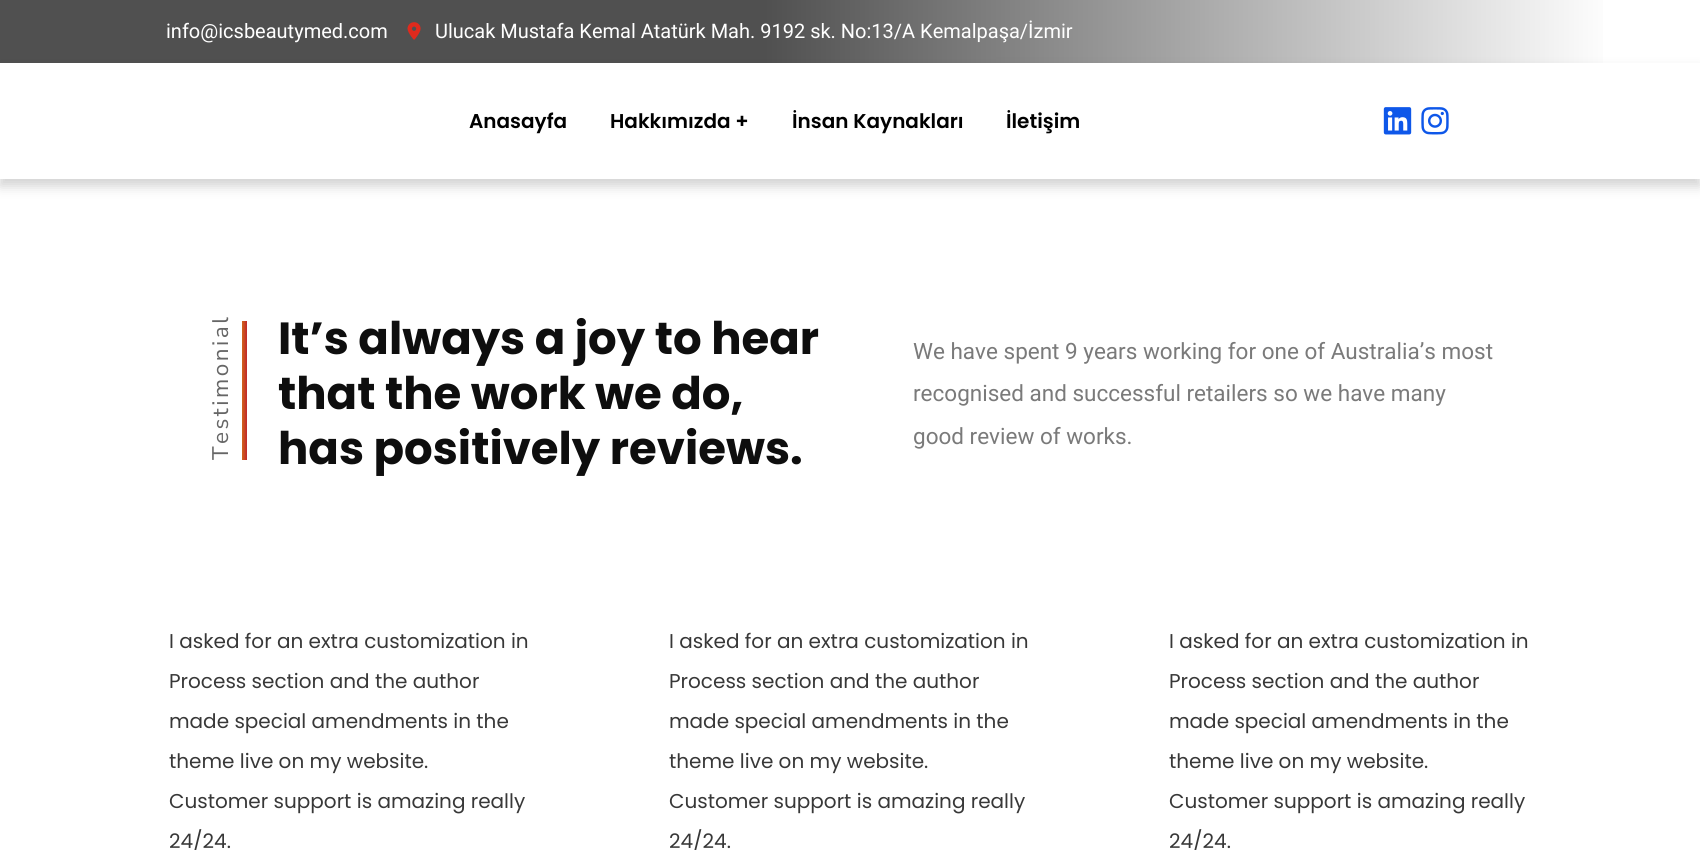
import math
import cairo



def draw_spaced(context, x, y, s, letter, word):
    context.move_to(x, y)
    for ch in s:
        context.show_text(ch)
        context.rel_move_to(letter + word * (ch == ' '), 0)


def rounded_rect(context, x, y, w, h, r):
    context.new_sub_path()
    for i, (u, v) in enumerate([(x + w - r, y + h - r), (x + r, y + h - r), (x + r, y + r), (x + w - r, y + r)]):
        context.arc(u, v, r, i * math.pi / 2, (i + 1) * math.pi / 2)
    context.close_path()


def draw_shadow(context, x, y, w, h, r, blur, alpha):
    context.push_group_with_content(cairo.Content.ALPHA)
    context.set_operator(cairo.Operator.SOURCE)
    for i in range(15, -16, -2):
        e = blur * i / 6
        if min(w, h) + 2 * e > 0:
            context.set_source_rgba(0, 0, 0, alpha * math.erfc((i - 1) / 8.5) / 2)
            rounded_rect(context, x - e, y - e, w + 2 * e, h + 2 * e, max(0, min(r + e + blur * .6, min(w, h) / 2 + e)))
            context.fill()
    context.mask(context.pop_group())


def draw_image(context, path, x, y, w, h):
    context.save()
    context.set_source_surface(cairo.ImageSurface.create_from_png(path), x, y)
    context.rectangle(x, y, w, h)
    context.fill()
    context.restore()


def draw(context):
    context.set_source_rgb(1, 1, 1)
    context.paint()
    gradient = cairo.LinearGradient(0, 31, 1700, 31)
    gradient.add_color_stop_rgba(0.45, 80 / 255, 80 / 255, 80 / 255, 1)
    gradient.add_color_stop_rgba(0.95, 1, 1, 1, 1)
    context.set_source(gradient)
    context.rectangle(0, 0, 1603, 63)
    context.fill()
    draw_image(context, "images/1.png", 407, 22, 14, 18)
    context.set_source_rgb(0, 0, 0)
    draw_shadow(context, 0, 70, 1700, 116, 0, 6, 0.18)
    context.set_source_rgb(1, 1, 1)
    context.rectangle(0, 63, 1700, 116)
    context.fill()
    draw_image(context, "images/2.png", 1383, 107, 29, 28)
    draw_image(context, "images/3.png", 1421, 107, 28, 28)
    gradient = cairo.LinearGradient(247, 390, 242, 390)
    gradient.add_color_stop_rgba(0, 193 / 255, 40 / 255, 42 / 255, 1)
    gradient.add_color_stop_rgba(1, 209 / 255, 101 / 255, 26 / 255, 1)
    context.set_source(gradient)
    context.rectangle(242, 321, 5, 139)
    context.fill()
    context.select_font_face("Roboto")
    context.set_font_size(20)
    context.set_source_rgb(1, 1, 1)
    context.move_to(166, 38)
    context.show_text("info@icsbeautymed.com")
    context.move_to(435, 38)
    context.show_text("Ulucak Mustafa Kemal Atatürk Mah. 9192 sk. No:13/A Kemalpaşa/İzmir")
    context.select_font_face("Poppins SemiBold")
    context.set_source_rgb(0, 0, 0)
    context.move_to(469, 128)
    context.show_text("Anasayfa")
    context.move_to(610, 128)
    context.show_text("Hakkımızda +")
    context.move_to(792, 128)
    context.show_text("İnsan Kaynakları")
    context.move_to(1006, 128)
    context.show_text("İletişim")
    context.select_font_face("Nunito Sans")
    context.set_font_size(22.5)
    context.set_source_rgb(102 / 255, 102 / 255, 102 / 255)
    context.save()
    context.translate(228, 460)
    context.rotate(-90 * math.pi / 180)
    draw_spaced(context, 0, 0, "Testimonial", 2.5, 0)
    context.restore()
    context.select_font_face("Poppins", cairo.FontSlant.NORMAL, cairo.FontWeight.BOLD)
    context.set_font_size(45)
    context.set_source_rgb(14 / 255, 14 / 255, 14 / 255)
    context.move_to(278, 354)
    context.show_text("It’s always a joy to hear")
    context.move_to(278, 409)
    context.show_text("that the work we do,")
    context.move_to(278, 464)
    context.show_text("has positively reviews.")
    context.select_font_face("Roboto")
    context.set_font_size(22.5)
    context.set_source_rgb(122 / 255, 122 / 255, 122 / 255)
    context.move_to(913, 359)
    context.show_text("We have spent 9 years working for one of Australia’s most")
    context.move_to(913, 401)
    context.show_text("recognised and successful retailers so we have many")
    context.move_to(913, 444)
    context.show_text("good review of works.")
    context.select_font_face("Poppins")
    context.set_font_size(20)
    context.set_source_rgb(56 / 255, 56 / 255, 56 / 255)
    context.move_to(169, 648)
    context.show_text("I asked for an extra customization in")
    context.move_to(169, 688)
    context.show_text("Process section and the author")
    context.move_to(169, 728)
    context.show_text("made special amendments in the")
    context.move_to(169, 768)
    context.show_text("theme live on my website.")
    context.move_to(169, 808)
    context.show_text("Customer support is amazing really")
    context.move_to(169, 848)
    context.show_text("24/24.")
    context.move_to(669, 648)
    context.show_text("I asked for an extra customization in")
    context.move_to(669, 688)
    context.show_text("Process section and the author")
    context.move_to(669, 728)
    context.show_text("made special amendments in the")
    context.move_to(669, 768)
    context.show_text("theme live on my website.")
    context.move_to(669, 808)
    context.show_text("Customer support is amazing really")
    context.move_to(669, 848)
    context.show_text("24/24.")
    context.move_to(1169, 648)
    context.show_text("I asked for an extra customization in")
    context.move_to(1169, 688)
    context.show_text("Process section and the author")
    context.move_to(1169, 728)
    context.show_text("made special amendments in the")
    context.move_to(1169, 768)
    context.show_text("theme live on my website.")
    context.move_to(1169, 808)
    context.show_text("Customer support is amazing really")
    context.move_to(1169, 848)
    context.show_text("24/24.")


surface = cairo.ImageSurface(cairo.Format.RGB24, 1700, 850)
context = cairo.Context(surface)
options = cairo.FontOptions()
options.set_hint_metrics(cairo.HintMetrics.OFF)
options.set_hint_style(cairo.HintStyle.NONE)
context.set_font_options(options)
context.set_miter_limit(4)
draw(context)
surface.write_to_png("out.png")
